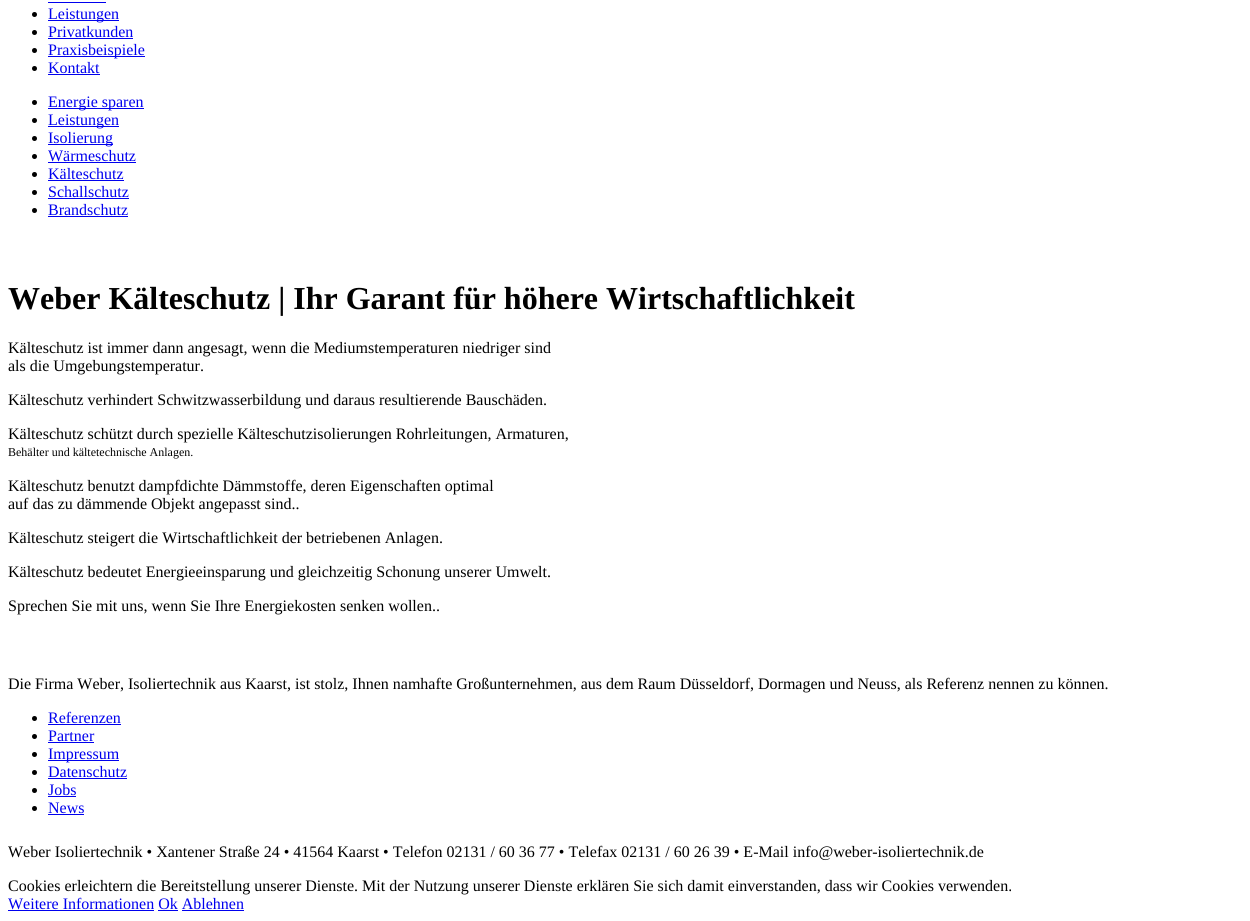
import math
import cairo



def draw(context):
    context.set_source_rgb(1, 1, 1)
    context.paint()
    context.set_source_rgb(0, 0, 238 / 255)
    context.rectangle(48, 2, 58, 1)
    context.fill()
    context.set_source_rgb(0, 0, 0)
    context.arc(34.5, 14.5, 2.5, 0, 2 * math.pi)
    context.fill()
    context.set_source_rgb(0, 0, 238 / 255)
    context.rectangle(48, 20, 71, 1)
    context.fill()
    context.set_source_rgb(0, 0, 0)
    context.arc(34.5, 32.5, 2.5, 0, 2 * math.pi)
    context.fill()
    context.set_source_rgb(0, 0, 238 / 255)
    context.rectangle(48, 38, 85, 1)
    context.fill()
    context.set_source_rgb(0, 0, 0)
    context.arc(34.5, 50.5, 2.5, 0, 2 * math.pi)
    context.fill()
    context.set_source_rgb(0, 0, 238 / 255)
    context.rectangle(48, 56, 97, 1)
    context.fill()
    context.set_source_rgb(0, 0, 0)
    context.arc(34.5, 68.5, 2.5, 0, 2 * math.pi)
    context.fill()
    context.set_source_rgb(0, 0, 238 / 255)
    context.rectangle(48, 74, 52, 1)
    context.fill()
    context.set_source_rgb(0, 0, 0)
    context.arc(34.5, 102.5, 2.5, 0, 2 * math.pi)
    context.fill()
    context.set_source_rgb(0, 0, 238 / 255)
    context.rectangle(48, 108, 96, 1)
    context.fill()
    context.set_source_rgb(0, 0, 0)
    context.arc(34.5, 120.5, 2.5, 0, 2 * math.pi)
    context.fill()
    context.set_source_rgb(0, 0, 238 / 255)
    context.rectangle(48, 126, 71, 1)
    context.fill()
    context.set_source_rgb(0, 0, 0)
    context.arc(34.5, 138.5, 2.5, 0, 2 * math.pi)
    context.fill()
    context.set_source_rgb(0, 0, 238 / 255)
    context.rectangle(48, 144, 65, 1)
    context.fill()
    context.set_source_rgb(0, 0, 0)
    context.arc(34.5, 156.5, 2.5, 0, 2 * math.pi)
    context.fill()
    context.set_source_rgb(0, 0, 238 / 255)
    context.rectangle(48, 162, 88, 1)
    context.fill()
    context.set_source_rgb(0, 0, 0)
    context.arc(34.5, 174.5, 2.5, 0, 2 * math.pi)
    context.fill()
    context.set_source_rgb(0, 0, 238 / 255)
    context.rectangle(48, 180, 76, 1)
    context.fill()
    context.set_source_rgb(0, 0, 0)
    context.arc(34.5, 192.5, 2.5, 0, 2 * math.pi)
    context.fill()
    context.set_source_rgb(0, 0, 238 / 255)
    context.rectangle(48, 198, 81, 1)
    context.fill()
    context.set_source_rgb(0, 0, 0)
    context.arc(34.5, 210.5, 2.5, 0, 2 * math.pi)
    context.fill()
    context.set_source_rgb(0, 0, 238 / 255)
    context.rectangle(48, 216, 80, 1)
    context.fill()
    context.set_source_rgb(0, 0, 0)
    context.arc(34.5, 718.5, 2.5, 0, 2 * math.pi)
    context.fill()
    context.set_source_rgb(0, 0, 238 / 255)
    context.rectangle(48, 724, 73, 1)
    context.fill()
    context.set_source_rgb(0, 0, 0)
    context.arc(34.5, 736.5, 2.5, 0, 2 * math.pi)
    context.fill()
    context.set_source_rgb(0, 0, 238 / 255)
    context.rectangle(48, 742, 46, 1)
    context.fill()
    context.set_source_rgb(0, 0, 0)
    context.arc(34.5, 754.5, 2.5, 0, 2 * math.pi)
    context.fill()
    context.set_source_rgb(0, 0, 238 / 255)
    context.rectangle(48, 760, 71, 1)
    context.fill()
    context.set_source_rgb(0, 0, 0)
    context.arc(34.5, 772.5, 2.5, 0, 2 * math.pi)
    context.fill()
    context.set_source_rgb(0, 0, 238 / 255)
    context.rectangle(48, 778, 79, 1)
    context.fill()
    context.set_source_rgb(0, 0, 0)
    context.arc(34.5, 790.5, 2.5, 0, 2 * math.pi)
    context.fill()
    context.set_source_rgb(0, 0, 238 / 255)
    context.rectangle(48, 796, 28, 1)
    context.fill()
    context.set_source_rgb(0, 0, 0)
    context.arc(34.5, 808.5, 2.5, 0, 2 * math.pi)
    context.fill()
    context.set_source_rgb(0, 0, 238 / 255)
    context.rectangle(48, 814, 36, 1)
    context.fill()
    context.rectangle(8, 910, 146, 1)
    context.fill()
    context.rectangle(158, 910, 20, 1)
    context.fill()
    context.rectangle(182, 910, 62, 1)
    context.fill()
    context.select_font_face("Liberation Serif")
    context.set_font_size(16)
    context.move_to(48, 19)
    context.show_text("Leistungen")
    context.move_to(48, 37)
    context.show_text("Privatkunden")
    context.move_to(48, 55)
    context.show_text("Praxisbeispiele")
    context.move_to(48, 73)
    context.show_text("Kontakt")
    context.move_to(48, 107)
    context.show_text("Energie sparen")
    context.move_to(48, 125)
    context.show_text("Leistungen")
    context.move_to(48, 143)
    context.show_text("Isolierung")
    context.move_to(48, 161)
    context.show_text("Wärmeschutz")
    context.move_to(48, 179)
    context.show_text("Kälteschutz")
    context.move_to(48, 197)
    context.show_text("Schallschutz")
    context.move_to(48, 215)
    context.show_text("Brandschutz")
    context.select_font_face("Liberation Serif", cairo.FontSlant.NORMAL, cairo.FontWeight.BOLD)
    context.set_font_size(32)
    context.set_source_rgb(0, 0, 0)
    context.move_to(8, 309)
    context.show_text("Weber Kälteschutz | Ihr Garant für höhere Wirtschaftlichkeit")
    context.select_font_face("Liberation Serif")
    context.set_font_size(16)
    context.move_to(8, 353)
    context.show_text("Kälteschutz ist immer dann angesagt, wenn die Mediumstemperaturen niedriger sind")
    context.move_to(8, 371)
    context.show_text("als die Umgebungstemperatur.")
    context.move_to(8, 405)
    context.show_text("Kälteschutz verhindert Schwitzwasserbildung und daraus resultierende Bauschäden.")
    context.move_to(8, 439)
    context.show_text("Kälteschutz schützt durch spezielle Kälteschutzisolierungen Rohrleitungen, Armaturen,")
    context.set_font_size(12)
    context.move_to(8, 456)
    context.show_text("Behälter und kältetechnische Anlagen.")
    context.set_font_size(16)
    context.move_to(8, 491)
    context.show_text("Kälteschutz benutzt dampfdichte Dämmstoffe, deren Eigenschaften optimal")
    context.move_to(8, 509)
    context.show_text("auf das zu dämmende Objekt angepasst sind..")
    context.move_to(8, 543)
    context.show_text("Kälteschutz steigert die Wirtschaftlichkeit der betriebenen Anlagen.")
    context.move_to(8, 577)
    context.show_text("Kälteschutz bedeutet Energieeinsparung und gleichzeitig Schonung unserer Umwelt.")
    context.move_to(8, 611)
    context.show_text("Sprechen Sie mit uns, wenn Sie Ihre Energiekosten senken wollen..")
    context.move_to(8, 689)
    context.show_text("Die Firma Weber, Isoliertechnik aus Kaarst, ist stolz, Ihnen namhafte Großunternehmen, aus dem Raum Düsseldorf, Dormagen und Neuss, als Referenz nennen zu können.")
    context.set_source_rgb(0, 0, 238 / 255)
    context.move_to(48, 723)
    context.show_text("Referenzen")
    context.move_to(48, 741)
    context.show_text("Partner")
    context.move_to(48, 759)
    context.show_text("Impressum")
    context.move_to(48, 777)
    context.show_text("Datenschutz")
    context.move_to(48, 795)
    context.show_text("Jobs")
    context.move_to(48, 813)
    context.show_text("News")
    context.set_source_rgb(0, 0, 0)
    context.move_to(8, 857)
    context.show_text("Weber Isoliertechnik • Xantener Straße 24 • 41564 Kaarst • Telefon 02131 / 60 36 77 • Telefax 02131 / 60 26 39 • E-Mail info@weber-isoliertechnik.de")
    context.move_to(8, 891)
    context.show_text("Cookies erleichtern die Bereitstellung unserer Dienste. Mit der Nutzung unserer Dienste erklären Sie sich damit einverstanden, dass wir Cookies verwenden.")
    context.set_source_rgb(0, 0, 238 / 255)
    context.move_to(8, 909)
    context.show_text("Weitere Informationen Ok Ablehnen")


surface = cairo.ImageSurface(cairo.Format.RGB24, 1250, 921)
context = cairo.Context(surface)
options = cairo.FontOptions()
options.set_hint_metrics(cairo.HintMetrics.OFF)
options.set_hint_style(cairo.HintStyle.NONE)
context.set_font_options(options)
context.set_miter_limit(4)
draw(context)
surface.write_to_png("out.png")
